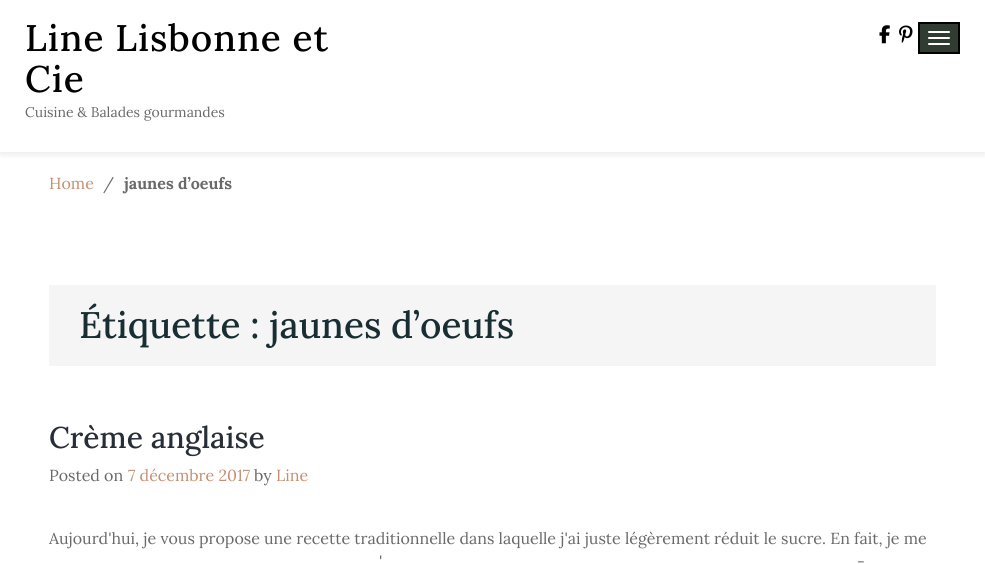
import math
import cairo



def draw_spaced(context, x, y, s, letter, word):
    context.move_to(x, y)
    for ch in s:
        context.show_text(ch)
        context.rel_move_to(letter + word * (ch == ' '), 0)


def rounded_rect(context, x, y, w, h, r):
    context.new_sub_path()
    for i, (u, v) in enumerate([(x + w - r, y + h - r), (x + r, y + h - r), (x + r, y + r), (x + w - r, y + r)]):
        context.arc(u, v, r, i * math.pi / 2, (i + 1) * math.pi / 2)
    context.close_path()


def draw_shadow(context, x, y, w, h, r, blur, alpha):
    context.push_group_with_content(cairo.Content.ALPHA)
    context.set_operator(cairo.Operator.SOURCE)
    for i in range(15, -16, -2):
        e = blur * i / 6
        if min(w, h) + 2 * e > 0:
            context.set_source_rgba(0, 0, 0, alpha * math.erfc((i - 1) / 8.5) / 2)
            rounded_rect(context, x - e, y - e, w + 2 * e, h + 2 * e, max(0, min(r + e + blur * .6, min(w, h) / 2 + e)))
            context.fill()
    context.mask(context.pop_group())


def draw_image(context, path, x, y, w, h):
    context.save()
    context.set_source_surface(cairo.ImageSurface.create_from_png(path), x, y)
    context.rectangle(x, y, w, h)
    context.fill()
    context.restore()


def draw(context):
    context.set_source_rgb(1, 1, 1)
    context.paint()
    context.save()
    context.rectangle(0, 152, 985, 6)
    context.clip()
    context.set_source_rgb(0, 0, 0)
    draw_shadow(context, 0, 0, 985, 152, 0, 6, 0.12)
    context.restore()
    draw_image(context, "images/1.png", 879, 25, 11, 19)
    draw_image(context, "images/2.png", 899, 25, 14, 18)
    context.set_source_rgb(48 / 255, 59 / 255, 50 / 255)
    context.rectangle(919, 23, 40, 30)
    context.fill_preserve()
    context.set_source_rgb(0, 0, 0)
    context.stroke()
    context.set_source_rgb(1, 1, 1)
    rounded_rect(context, 928, 31, 22, 2, 1)
    context.fill()
    rounded_rect(context, 928, 37, 22, 2, 1)
    context.fill()
    rounded_rect(context, 928, 43, 22, 2, 1)
    context.fill()
    context.set_source_rgb(245 / 255, 245 / 255, 245 / 255)
    context.rectangle(49, 285, 887, 81)
    context.fill()
    context.select_font_face("Lora Medium")
    context.set_font_size(37)
    context.set_source_rgb(0, 0, 0)
    draw_spaced(context, 25, 51, "Line Lisbonne et", 1, 0)
    draw_spaced(context, 25, 92, "Cie", 1, 0)
    context.select_font_face("Lora")
    context.set_font_size(14)
    context.set_source_rgb(105 / 255, 105 / 255, 105 / 255)
    context.move_to(25, 117)
    context.show_text("Cuisine & Balades gourmandes")
    context.set_font_size(16)
    context.set_source_rgb(196 / 255, 143 / 255, 114 / 255)
    context.move_to(49, 189)
    context.show_text("Home")
    context.set_source_rgb(105 / 255, 105 / 255, 105 / 255)
    context.move_to(103, 189)
    context.show_text("/")
    context.select_font_face("Lora", cairo.FontSlant.NORMAL, cairo.FontWeight.BOLD)
    context.move_to(124, 189)
    context.show_text("jaunes d’oeufs")
    context.select_font_face("Lora Medium")
    context.set_font_size(37)
    context.set_source_rgb(24 / 255, 46 / 255, 51 / 255)
    context.move_to(79, 338)
    context.show_text("Étiquette : jaunes d’oeufs")
    context.set_font_size(30)
    context.set_source_rgb(39 / 255, 46 / 255, 55 / 255)
    context.move_to(49, 448)
    context.show_text("Crème anglaise")
    context.select_font_face("Lora")
    context.set_font_size(16)
    context.set_source_rgb(105 / 255, 105 / 255, 105 / 255)
    context.move_to(49, 481)
    context.show_text("Posted on")
    context.set_source_rgb(196 / 255, 143 / 255, 114 / 255)
    context.move_to(128, 481)
    context.show_text("7 décembre 2017")
    context.set_source_rgb(105 / 255, 105 / 255, 105 / 255)
    context.move_to(254, 481)
    context.show_text("by")
    context.set_source_rgb(196 / 255, 143 / 255, 114 / 255)
    context.move_to(276, 481)
    context.show_text("Line")
    context.set_source_rgb(105 / 255, 105 / 255, 105 / 255)
    context.move_to(49, 544)
    context.show_text("Aujourd'hui, je vous propose une recette traditionnelle dans laquelle j'ai juste légèrement réduit le sucre. En fait, je me")
    context.move_to(379, 567)
    context.show_text("'")
    context.move_to(857, 567)
    context.show_text("-")


surface = cairo.ImageSurface(cairo.Format.RGB24, 985, 564)
context = cairo.Context(surface)
options = cairo.FontOptions()
options.set_hint_metrics(cairo.HintMetrics.OFF)
options.set_hint_style(cairo.HintStyle.NONE)
context.set_font_options(options)
context.set_miter_limit(4)
draw(context)
surface.write_to_png("out.png")
